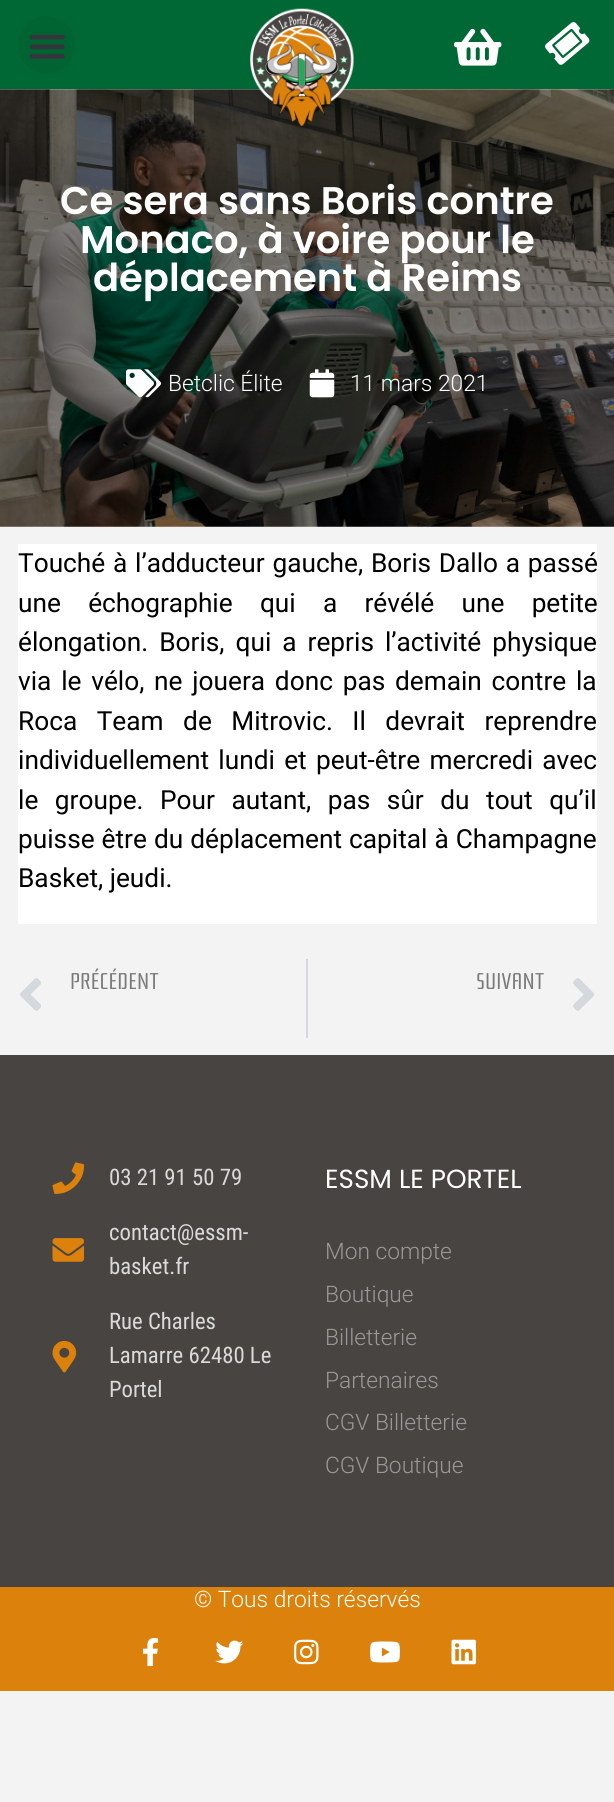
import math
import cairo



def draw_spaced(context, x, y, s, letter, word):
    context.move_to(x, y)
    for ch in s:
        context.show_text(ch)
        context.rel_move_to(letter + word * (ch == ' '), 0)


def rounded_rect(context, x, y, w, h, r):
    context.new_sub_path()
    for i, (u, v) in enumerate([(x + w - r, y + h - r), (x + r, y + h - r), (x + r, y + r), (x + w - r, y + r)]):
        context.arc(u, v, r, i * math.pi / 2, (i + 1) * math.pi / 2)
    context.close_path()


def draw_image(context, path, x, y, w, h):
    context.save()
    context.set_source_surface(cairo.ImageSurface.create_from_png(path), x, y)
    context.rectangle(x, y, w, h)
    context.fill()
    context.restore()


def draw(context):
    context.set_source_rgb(243 / 255, 243 / 255, 243 / 255)
    context.paint()
    context.set_source_rgb(0, 104 / 255, 53 / 255)
    context.rectangle(0, 0, 614, 89)
    context.fill()
    context.set_source_rgb(0, 99 / 255, 50 / 255)
    rounded_rect(context, 18, 16, 57, 58, 28.5)
    context.fill()
    draw_image(context, "images/1.png", 29, 34, 36, 25)
    draw_image(context, "images/5.png", 0, 89, 614, 438)
    draw_image(context, "images/2.png", 250, 8, 104, 118)
    draw_image(context, "images/3.png", 454, 28, 48, 38)
    draw_image(context, "images/4.png", 545, 22, 45, 43)
    draw_image(context, "images/6.png", 126, 369, 35, 29)
    draw_image(context, "images/7.png", 309, 369, 26, 29)
    context.set_source_rgb(1, 1, 1)
    context.rectangle(18, 544, 579, 380)
    context.fill()
    draw_image(context, "images/8.png", 20, 978, 21, 33)
    context.set_source_rgb(213 / 255, 216 / 255, 220 / 255)
    context.rectangle(306, 959, 2, 79)
    context.fill()
    draw_image(context, "images/9.png", 573, 978, 22, 33)
    context.set_source_rgb(71 / 255, 68 / 255, 65 / 255)
    context.rectangle(0, 1055, 614, 532)
    context.fill()
    draw_image(context, "images/10.png", 52, 1162, 33, 32)
    draw_image(context, "images/11.png", 52, 1238, 32, 24)
    draw_image(context, "images/12.png", 52, 1340, 25, 33)
    context.set_source_rgb(220 / 255, 130 / 255, 12 / 255)
    context.rectangle(0, 1587, 614, 104)
    context.fill()
    draw_image(context, "images/13.png", 143, 1638, 15, 28)
    draw_image(context, "images/14.png", 215, 1640, 29, 24)
    draw_image(context, "images/15.png", 294, 1639, 25, 26)
    draw_image(context, "images/16.png", 370, 1641, 30, 22)
    draw_image(context, "images/17.png", 451, 1639, 25, 26)
    context.select_font_face("Poppins SemiBold")
    context.set_font_size(38.5)
    context.set_source_rgb(1, 1, 1)
    context.move_to(60, 214)
    context.show_text("Ce sera sans Boris contre")
    context.move_to(80, 253)
    context.show_text("Monaco, à voire pour le")
    context.move_to(93, 291)
    context.show_text("déplacement à Reims")
    context.select_font_face("Roboto Light")
    context.set_font_size(22.75)
    context.move_to(168, 391)
    context.show_text("Betclic Élite")
    context.move_to(350, 391)
    context.show_text("11 mars 2021")
    context.select_font_face("Roboto")
    context.set_font_size(26.25)
    context.set_source_rgb(0, 0, 0)
    draw_spaced(context, 18, 572, "Touché à l’adducteur gauche, Boris Dallo a passé", 0, 1.25)
    draw_spaced(context, 18, 612, "une échographie qui a révélé une petite", 0, 20.75)
    draw_spaced(context, 18, 651, "élongation. Boris, qui a repris l’activité physique", 0, 4.5)
    draw_spaced(context, 18, 690, "via le vélo, ne jouera donc pas demain contre la", 0, 3.25)
    draw_spaced(context, 18, 730, "Roca Team de Mitrovic. Il devrait reprendre", 0, 13)
    draw_spaced(context, 18, 769, "individuellement lundi et peut-être mercredi avec", 0, 2.75)
    draw_spaced(context, 18, 809, "le groupe. Pour autant, pas sûr du tout qu’il", 0, 10)
    draw_spaced(context, 18, 848, "puisse être du déplacement capital à Champagne", 0, 0.5)
    context.move_to(18, 887)
    context.show_text("Basket, jeudi.")
    context.select_font_face("Rationale")
    context.set_font_size(22.75)
    context.set_source_rgb(122 / 255, 122 / 255, 122 / 255)
    context.move_to(70, 989)
    context.show_text("PRÉCÉDENT")
    context.move_to(476, 989)
    context.show_text("SUIVANT")
    context.select_font_face("Roboto Condensed")
    context.set_source_rgb(218 / 255, 218 / 255, 217 / 255)
    context.move_to(109, 1185)
    context.show_text("03 21 91 50 79")
    context.move_to(109, 1240)
    context.show_text("contact@essm-")
    context.move_to(109, 1274)
    context.show_text("basket.fr")
    context.move_to(109, 1329)
    context.show_text("Rue Charles")
    context.move_to(109, 1363)
    context.show_text("Lamarre 62480 Le")
    context.move_to(109, 1397)
    context.show_text("Portel")
    context.select_font_face("Poppins")
    context.set_font_size(26.25)
    context.set_source_rgb(1, 1, 1)
    context.move_to(325, 1188)
    context.show_text("ESSM LE PORTEL")
    context.select_font_face("Roboto Light")
    context.set_font_size(22.75)
    context.set_source_rgb(154 / 255, 152 / 255, 151 / 255)
    context.move_to(325, 1259)
    context.show_text("Mon compte")
    context.move_to(325, 1302)
    context.show_text("Boutique")
    context.move_to(325, 1345)
    context.show_text("Billetterie")
    context.move_to(325, 1388)
    context.show_text("Partenaires")
    context.move_to(325, 1430)
    context.show_text("CGV Billetterie")
    context.move_to(325, 1473)
    context.show_text("CGV Boutique")
    context.set_source_rgb(1, 1, 1)
    context.move_to(194, 1607)
    context.show_text("© Tous droits réservés")


surface = cairo.ImageSurface(cairo.Format.RGB24, 614, 1802)
context = cairo.Context(surface)
options = cairo.FontOptions()
options.set_hint_metrics(cairo.HintMetrics.OFF)
options.set_hint_style(cairo.HintStyle.NONE)
context.set_font_options(options)
context.set_miter_limit(4)
draw(context)
surface.write_to_png("out.png")
